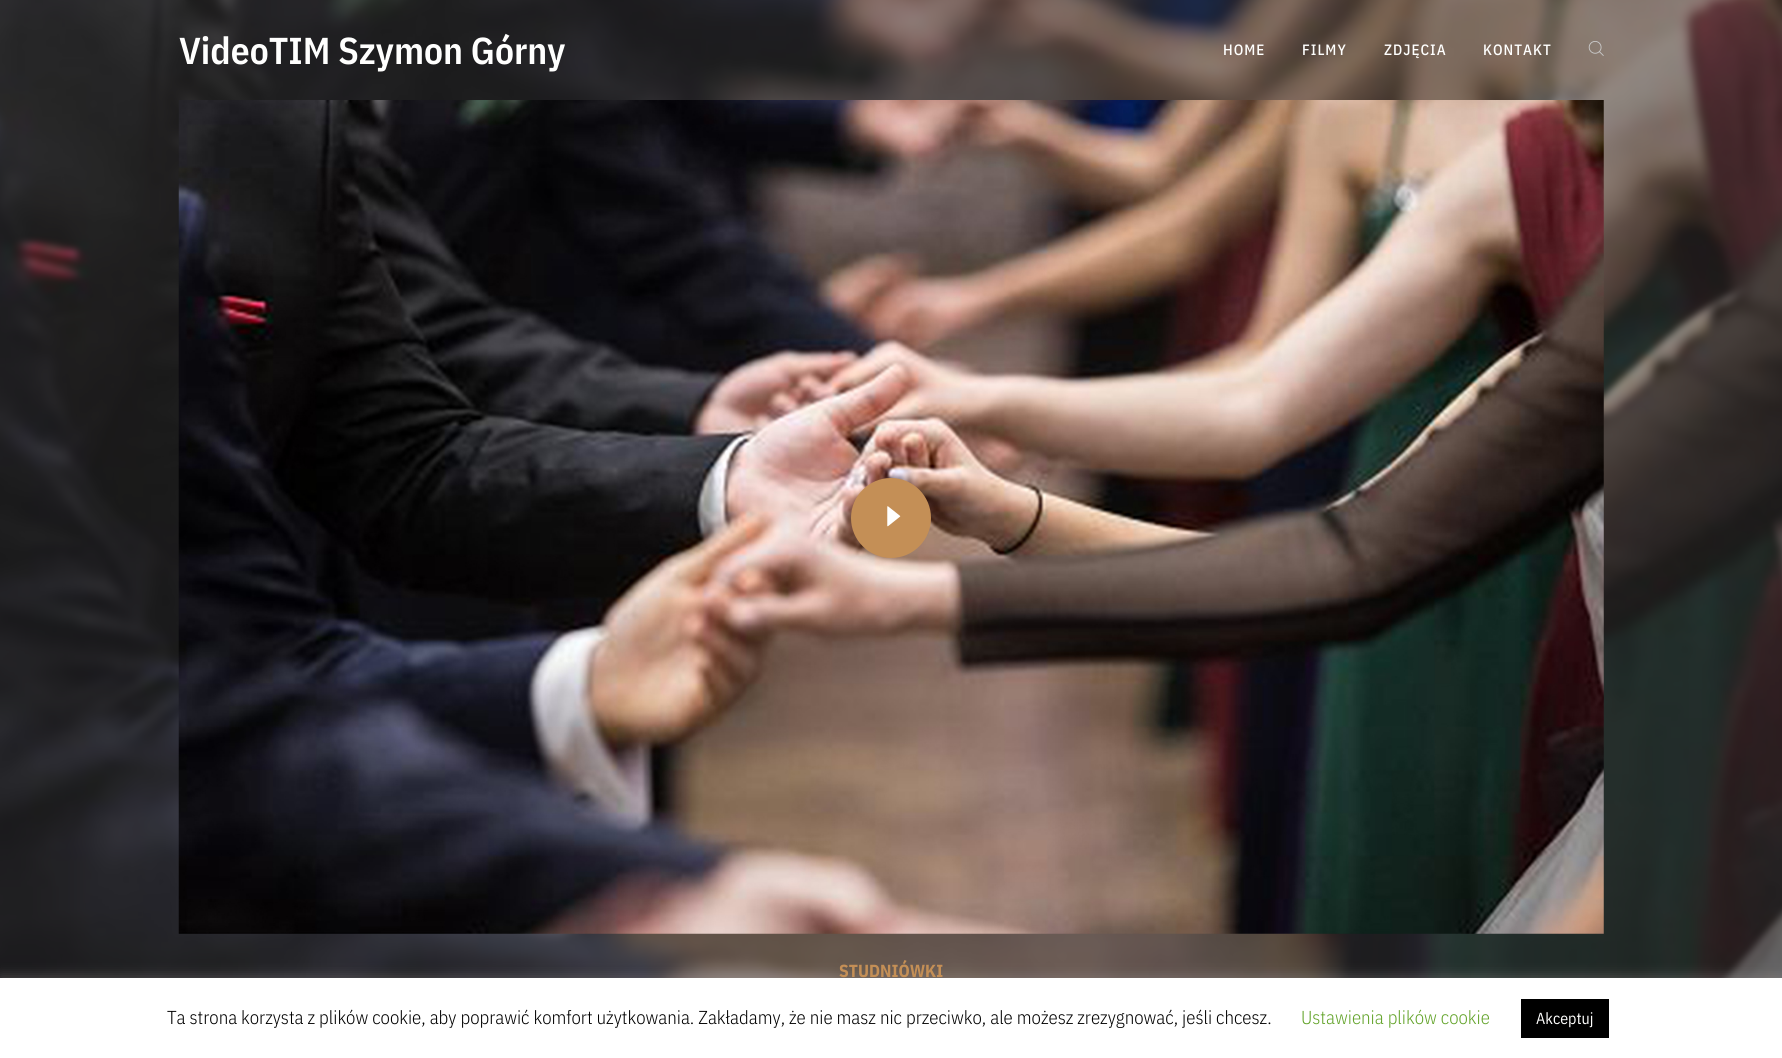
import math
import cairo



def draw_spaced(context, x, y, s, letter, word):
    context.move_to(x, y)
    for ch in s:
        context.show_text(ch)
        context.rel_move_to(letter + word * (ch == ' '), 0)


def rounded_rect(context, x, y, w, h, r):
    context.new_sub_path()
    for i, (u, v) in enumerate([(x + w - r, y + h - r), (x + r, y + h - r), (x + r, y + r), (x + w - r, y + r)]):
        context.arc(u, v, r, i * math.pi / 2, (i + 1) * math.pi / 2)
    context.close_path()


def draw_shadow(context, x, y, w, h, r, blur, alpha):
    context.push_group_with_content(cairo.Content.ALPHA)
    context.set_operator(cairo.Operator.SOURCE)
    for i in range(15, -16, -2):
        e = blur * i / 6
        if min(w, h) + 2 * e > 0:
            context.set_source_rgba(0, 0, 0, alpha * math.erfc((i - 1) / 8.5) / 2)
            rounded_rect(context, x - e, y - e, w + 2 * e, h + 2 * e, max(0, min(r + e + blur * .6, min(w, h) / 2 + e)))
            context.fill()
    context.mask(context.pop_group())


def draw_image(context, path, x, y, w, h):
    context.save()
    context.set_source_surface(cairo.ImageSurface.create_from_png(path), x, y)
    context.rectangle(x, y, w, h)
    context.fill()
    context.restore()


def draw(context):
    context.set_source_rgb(51 / 255, 51 / 255, 51 / 255)
    context.paint()
    draw_image(context, "images/2.png", 0, 0, 1782, 978)
    draw_image(context, "images/1.png", 1588, 41, 16, 15)
    draw_image(context, "images/3.png", 178, 100, 1426, 834)
    context.set_source_rgb(196 / 255, 143 / 255, 86 / 255)
    context.arc(891, 518, 40, 0, 2 * math.pi)
    context.fill()
    draw_image(context, "images/4.png", 887, 506, 14, 21)
    context.set_source_rgb(172 / 255, 171 / 255, 171 / 255)
    draw_shadow(context, 0, 976, 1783, 82, 0, 6, 0.3)
    context.set_source_rgb(1, 1, 1)
    context.rectangle(0, 978, 1782, 80)
    context.fill()
    context.set_source_rgb(0, 0, 0)
    context.rectangle(1521, 999, 88, 39)
    context.fill()
    context.select_font_face("IBM Plex Sans Condensed SemiBold")
    context.set_font_size(37.5)
    context.set_source_rgb(1, 1, 254 / 255)
    context.move_to(179, 64)
    context.show_text("VideoTIM Szymon Górny")
    context.select_font_face("IBM Plex Sans Condensed Medium")
    context.set_font_size(15)
    draw_spaced(context, 1223, 55, "HOME", 1, 0)
    draw_spaced(context, 1302, 55, "FILMY", 1, 0)
    draw_spaced(context, 1384, 55, "ZDJĘCIA", 1, 0)
    draw_spaced(context, 1483, 55, "KONTAKT", 1, 0)
    context.select_font_face("IBM Plex Sans Condensed", cairo.FontSlant.NORMAL, cairo.FontWeight.BOLD)
    context.set_font_size(17.5)
    context.set_source_rgb(196 / 255, 143 / 255, 86 / 255)
    context.move_to(839, 977)
    context.show_text("STUDNIÓWKI")
    context.select_font_face("IBM Plex Sans Condensed Light")
    context.set_font_size(18.75)
    context.set_source_rgb(0, 0, 0)
    context.move_to(167, 1024)
    context.show_text("Ta strona korzysta z plików cookie, aby poprawić komfort użytkowania. Zakładamy, że nie masz nic przeciwko, ale możesz zrezygnować, jeśli chcesz.")
    context.set_source_rgb(98 / 255, 163 / 255, 41 / 255)
    context.move_to(1301, 1024)
    context.show_text("Ustawienia plików cookie")
    context.select_font_face("IBM Plex Sans Condensed")
    context.set_font_size(16)
    context.set_source_rgb(1, 1, 254 / 255)
    context.move_to(1536, 1024)
    context.show_text("Akceptuj")


surface = cairo.ImageSurface(cairo.Format.RGB24, 1782, 1058)
context = cairo.Context(surface)
options = cairo.FontOptions()
options.set_hint_metrics(cairo.HintMetrics.OFF)
options.set_hint_style(cairo.HintStyle.NONE)
context.set_font_options(options)
context.set_miter_limit(4)
draw(context)
surface.write_to_png("out.png")
